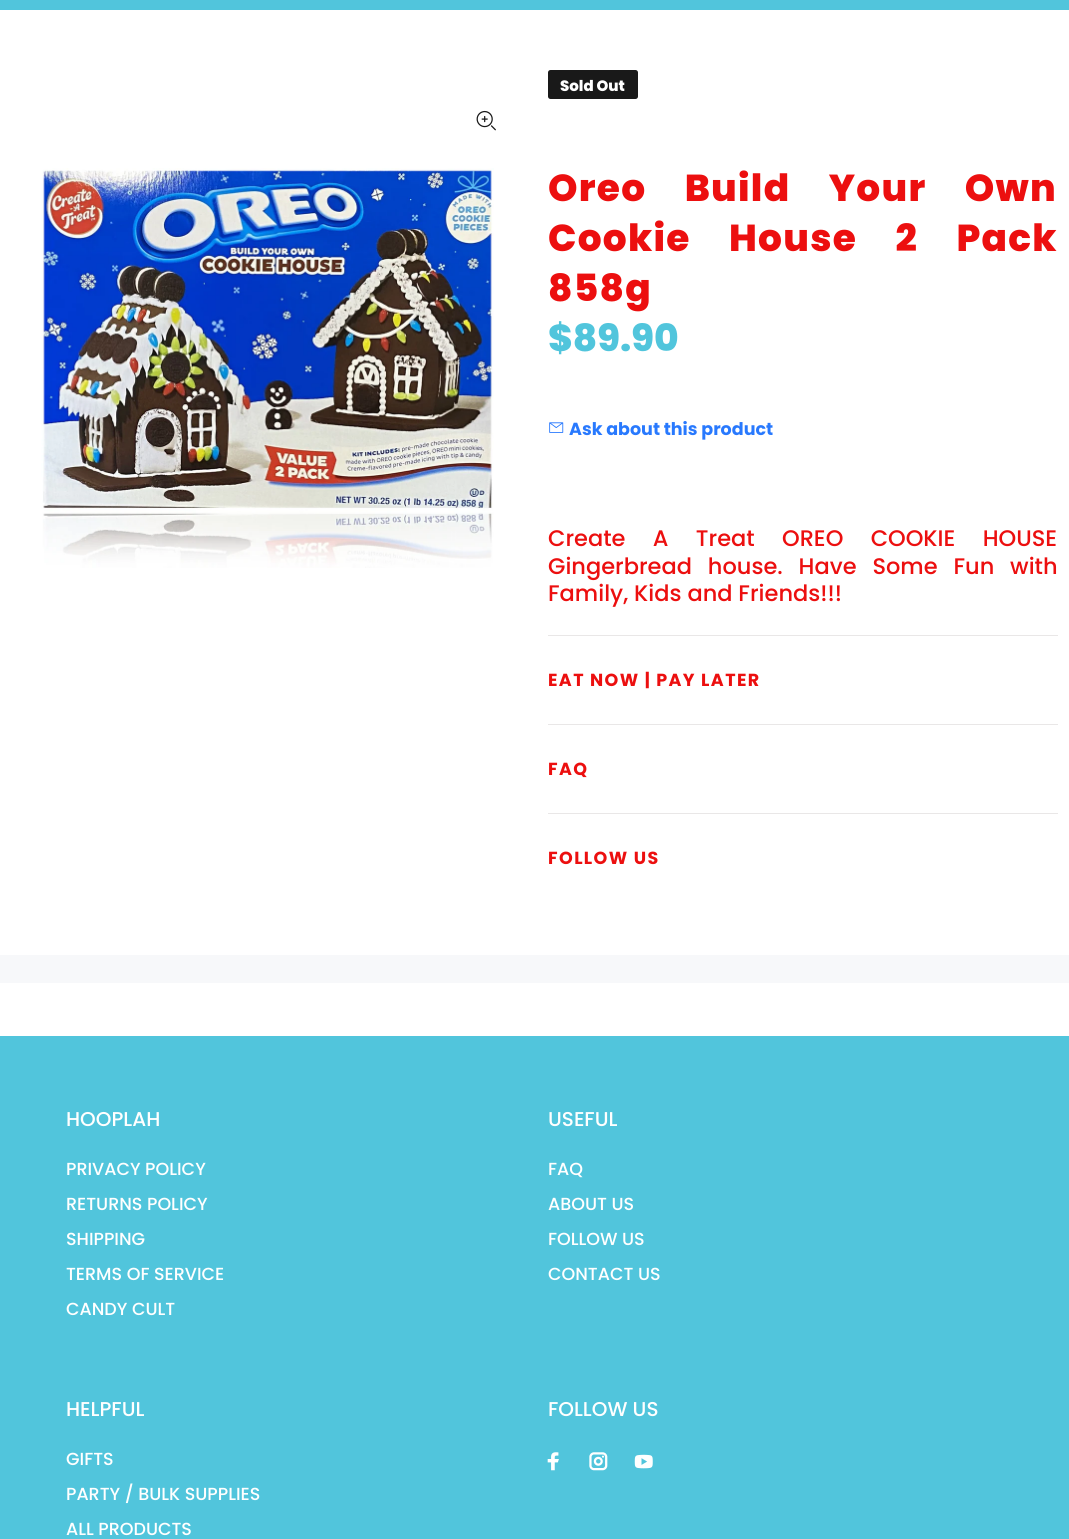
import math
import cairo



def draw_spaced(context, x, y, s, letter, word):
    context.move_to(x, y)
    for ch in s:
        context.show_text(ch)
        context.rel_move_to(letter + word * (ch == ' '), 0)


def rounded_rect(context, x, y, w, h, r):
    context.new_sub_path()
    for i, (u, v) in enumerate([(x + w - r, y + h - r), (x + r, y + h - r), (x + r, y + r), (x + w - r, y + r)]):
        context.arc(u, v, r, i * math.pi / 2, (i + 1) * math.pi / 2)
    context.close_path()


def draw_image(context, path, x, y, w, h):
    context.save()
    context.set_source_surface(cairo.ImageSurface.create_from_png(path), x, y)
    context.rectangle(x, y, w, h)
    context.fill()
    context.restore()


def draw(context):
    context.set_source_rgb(1, 1, 1)
    context.paint()
    context.set_source_rgb(81 / 255, 197 / 255, 220 / 255)
    context.rectangle(0, 0, 1069, 10)
    context.fill()
    draw_image(context, "images/1.png", 476, 110, 20, 21)
    draw_image(context, "images/2.png", 41, 168, 453, 400)
    context.set_source_rgb(25 / 255, 25 / 255, 25 / 255)
    rounded_rect(context, 548, 70, 90, 29, 2.5)
    context.fill()
    draw_image(context, "images/3.png", 549, 422, 15, 11)
    context.set_source_rgb(233 / 255, 231 / 255, 231 / 255)
    context.rectangle(548, 635, 510, 1)
    context.fill()
    context.rectangle(548, 724, 510, 1)
    context.fill()
    context.rectangle(548, 813, 510, 1)
    context.fill()
    context.set_source_rgb(247 / 255, 248 / 255, 250 / 255)
    context.rectangle(0, 955, 1069, 28)
    context.fill()
    context.set_source_rgb(81 / 255, 197 / 255, 220 / 255)
    context.rectangle(0, 1036, 1069, 503)
    context.fill()
    draw_image(context, "images/4.png", 547, 1452, 12, 19)
    draw_image(context, "images/5.png", 589, 1452, 19, 19)
    draw_image(context, "images/6.png", 634, 1454, 19, 15)
    context.select_font_face("Poppins ExtraBold")
    context.set_font_size(15)
    context.set_source_rgb(1, 1, 1)
    context.move_to(560, 91)
    context.show_text("Sold Out")
    context.set_font_size(37.5)
    context.set_source_rgb(236 / 255, 15 / 255, 15 / 255)
    draw_spaced(context, 548, 201, "Oreo Build Your Own", 1.25, 30)
    draw_spaced(context, 548, 251, "Cookie House 2 Pack", 1.25, 30)
    draw_spaced(context, 548, 301, "858g", 1.25, 0)
    context.set_source_rgb(81 / 255, 197 / 255, 220 / 255)
    context.move_to(548, 351)
    context.show_text("$89.90")
    context.select_font_face("Poppins", cairo.FontSlant.NORMAL, cairo.FontWeight.BOLD)
    context.set_font_size(17.5)
    context.set_source_rgb(40 / 255, 121 / 255, 254 / 255)
    context.move_to(569, 435)
    context.show_text("Ask about this product")
    context.select_font_face("Poppins Medium")
    context.set_font_size(22.5)
    context.set_source_rgb(236 / 255, 15 / 255, 15 / 255)
    draw_spaced(context, 548, 546, "Create A Treat OREO COOKIE HOUSE", 0, 21.5)
    draw_spaced(context, 548, 574, "Gingerbread house. Have Some Fun with", 0, 10)
    context.move_to(548, 601)
    context.show_text("Family, Kids and Friends!!!")
    context.select_font_face("Poppins", cairo.FontSlant.NORMAL, cairo.FontWeight.BOLD)
    context.set_font_size(17.5)
    draw_spaced(context, 548, 686, "EAT NOW | PAY LATER", 1.4, 0)
    draw_spaced(context, 548, 775, "FAQ", 1.4, 0)
    draw_spaced(context, 548, 864, "FOLLOW US", 1.4, 0)
    context.select_font_face("Poppins Medium")
    context.set_font_size(20)
    context.set_source_rgb(1, 1, 1)
    context.move_to(66, 1126)
    context.show_text("HOOPLAH")
    context.set_font_size(17.5)
    context.move_to(66, 1175)
    context.show_text("PRIVACY POLICY")
    context.move_to(66, 1210)
    context.show_text("RETURNS POLICY")
    context.move_to(66, 1245)
    context.show_text("SHIPPING")
    context.move_to(66, 1280)
    context.show_text("TERMS OF SERVICE")
    context.move_to(66, 1315)
    context.show_text("CANDY CULT")
    context.set_font_size(20)
    context.move_to(548, 1126)
    context.show_text("USEFUL")
    context.set_font_size(17.5)
    context.move_to(548, 1175)
    context.show_text("FAQ")
    context.move_to(548, 1210)
    context.show_text("ABOUT US")
    context.move_to(548, 1245)
    context.show_text("FOLLOW US")
    context.move_to(548, 1280)
    context.show_text("CONTACT US")
    context.set_font_size(20)
    context.move_to(66, 1416)
    context.show_text("HELPFUL")
    context.set_font_size(17.5)
    context.move_to(66, 1465)
    context.show_text("GIFTS")
    context.move_to(66, 1500)
    context.show_text("PARTY / BULK SUPPLIES")
    context.move_to(66, 1535)
    context.show_text("ALL PRODUCTS")
    context.set_font_size(20)
    context.move_to(548, 1416)
    context.show_text("FOLLOW US")


surface = cairo.ImageSurface(cairo.Format.RGB24, 1069, 1539)
context = cairo.Context(surface)
options = cairo.FontOptions()
options.set_hint_metrics(cairo.HintMetrics.OFF)
options.set_hint_style(cairo.HintStyle.NONE)
context.set_font_options(options)
context.set_miter_limit(4)
draw(context)
surface.write_to_png("out.png")
